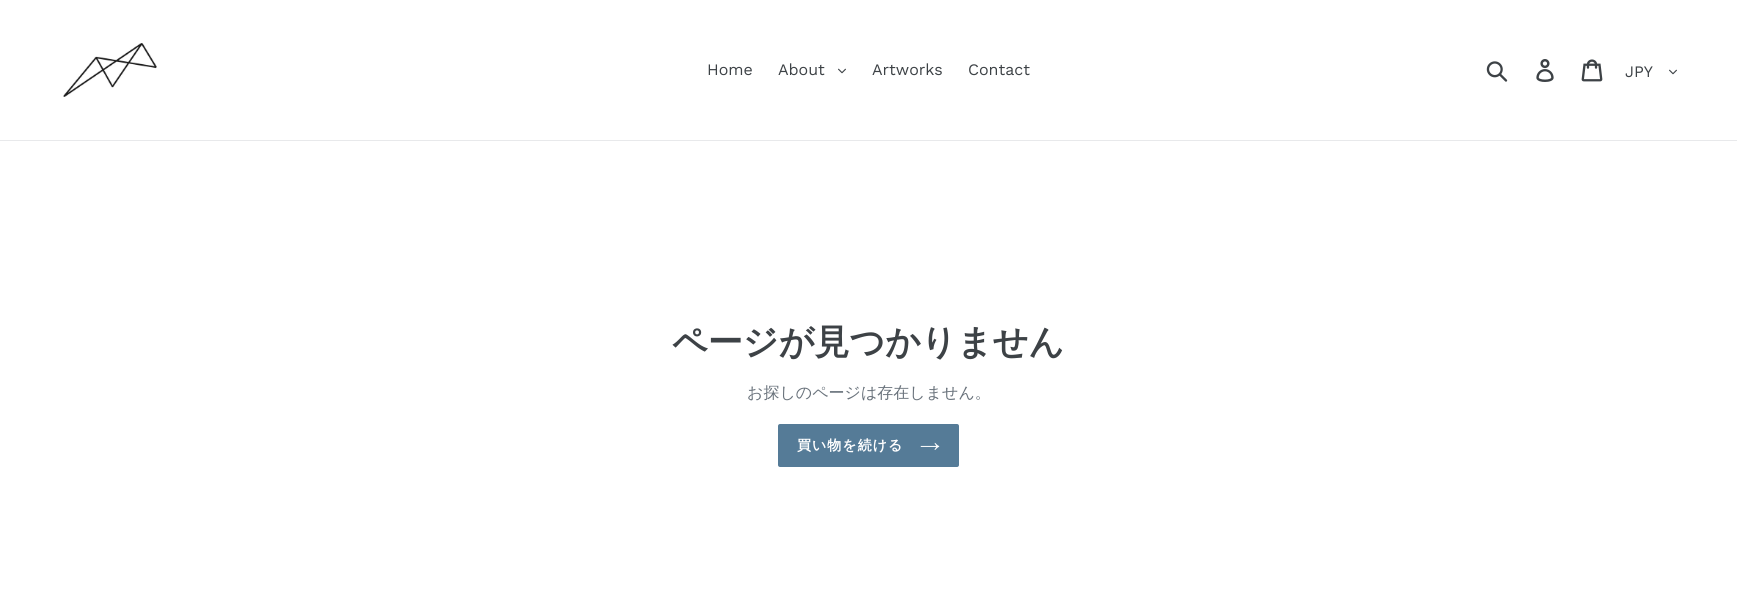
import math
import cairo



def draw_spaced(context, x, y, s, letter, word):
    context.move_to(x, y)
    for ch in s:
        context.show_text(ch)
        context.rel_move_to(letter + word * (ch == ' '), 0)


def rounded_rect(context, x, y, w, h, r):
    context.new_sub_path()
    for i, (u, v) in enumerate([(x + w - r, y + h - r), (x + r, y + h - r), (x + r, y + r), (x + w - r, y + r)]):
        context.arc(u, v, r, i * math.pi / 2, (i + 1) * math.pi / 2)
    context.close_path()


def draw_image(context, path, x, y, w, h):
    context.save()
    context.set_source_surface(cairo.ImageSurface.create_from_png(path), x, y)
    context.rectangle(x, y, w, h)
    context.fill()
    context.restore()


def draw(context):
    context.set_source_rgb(1, 1, 1)
    context.paint()
    context.set_source_rgb(232 / 255, 233 / 255, 235 / 255)
    context.rectangle(0, 140, 1737, 1)
    context.fill()
    draw_image(context, "images/1.png", 63, 43, 94, 54)
    draw_image(context, "images/2.png", 838, 68, 8, 6)
    draw_image(context, "images/3.png", 1486, 61, 22, 21)
    draw_image(context, "images/4.png", 1536, 59, 18, 23)
    draw_image(context, "images/5.png", 1581, 59, 22, 23)
    draw_image(context, "images/2.png", 1669, 69, 8, 6)
    context.set_source_rgb(85 / 255, 123 / 255, 151 / 255)
    rounded_rect(context, 778, 424, 181, 43, 2)
    context.fill()
    draw_image(context, "images/6.png", 920, 442, 20, 8)
    context.select_font_face("Work Sans")
    context.set_font_size(16)
    context.set_source_rgb(61 / 255, 66 / 255, 70 / 255)
    context.move_to(707, 75)
    context.show_text("Home")
    context.move_to(778, 75)
    context.show_text("About")
    context.move_to(872, 75)
    context.show_text("Artworks")
    context.move_to(968, 75)
    context.show_text("Contact")
    context.move_to(1625, 77)
    context.show_text("JPY")
    context.select_font_face("WenQuanYi Zen Hei", cairo.FontSlant.NORMAL, cairo.FontWeight.BOLD)
    context.set_font_size(35)
    context.move_to(672, 354)
    context.show_text("ページが見つかりません")
    context.select_font_face("WenQuanYi Zen Hei Medium")
    context.set_font_size(16)
    context.set_source_rgb(105 / 255, 114 / 255, 123 / 255)
    context.move_to(747, 398)
    context.show_text("お探しのページは存在しません。")
    context.select_font_face("WenQuanYi Zen Hei", cairo.FontSlant.NORMAL, cairo.FontWeight.BOLD)
    context.set_font_size(14)
    context.set_source_rgb(1, 1, 1)
    draw_spaced(context, 797, 450, "買い物を続ける", 1, 0)


surface = cairo.ImageSurface(cairo.Format.RGB24, 1737, 616)
context = cairo.Context(surface)
options = cairo.FontOptions()
options.set_hint_metrics(cairo.HintMetrics.OFF)
options.set_hint_style(cairo.HintStyle.NONE)
context.set_font_options(options)
context.set_miter_limit(4)
draw(context)
surface.write_to_png("out.png")
